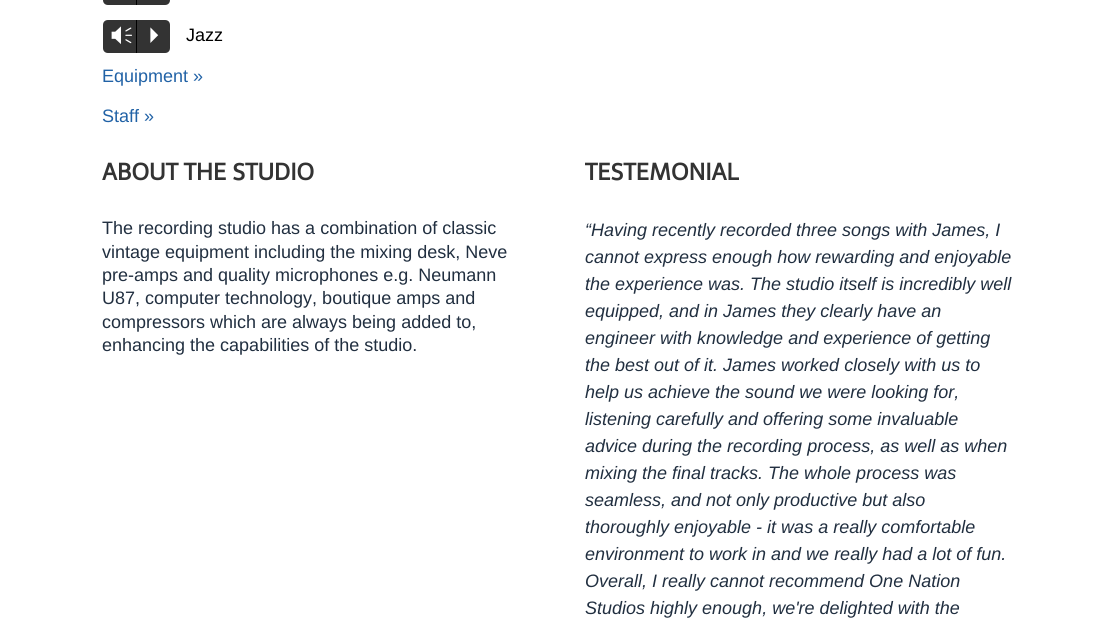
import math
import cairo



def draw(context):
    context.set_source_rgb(1, 1, 1)
    context.paint()
    context.set_source_rgb(51 / 255, 51 / 255, 51 / 255)
    context.new_path()
    context.move_to(108, -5)
    context.line_to(136, -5)
    context.line_to(136, 5)
    context.line_to(108, 5)
    context.curve_to(105, 5, 103, 3, 103, 0)
    context.curve_to(103, -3, 105, -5, 108, -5)
    context.close_path()
    context.fill()
    context.new_path()
    context.move_to(136, -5)
    context.line_to(165, -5)
    context.curve_to(168, -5, 170, -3, 170, 0)
    context.curve_to(170, 3, 168, 5, 165, 5)
    context.line_to(136, 5)
    context.close_path()
    context.fill()
    context.set_source_rgb(0, 0, 0)
    context.rectangle(136, 0, 1, 5)
    context.fill()
    context.set_source_rgb(51 / 255, 51 / 255, 51 / 255)
    context.new_path()
    context.move_to(108, 20)
    context.line_to(136, 20)
    context.line_to(136, 53)
    context.line_to(108, 53)
    context.curve_to(105, 53, 103, 51, 103, 48)
    context.line_to(103, 25)
    context.curve_to(103, 22, 105, 20, 108, 20)
    context.close_path()
    context.fill()
    context.new_path()
    context.move_to(136, 20)
    context.line_to(165, 20)
    context.curve_to(168, 20, 170, 22, 170, 25)
    context.line_to(170, 48)
    context.curve_to(170, 51, 168, 53, 165, 53)
    context.line_to(136, 53)
    context.close_path()
    context.fill()
    context.set_source_rgb(0, 0, 0)
    context.rectangle(136, 20, 1, 33)
    context.fill()
    context.select_font_face("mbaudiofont")
    context.set_font_size(25)
    context.set_source_rgb(1, 1, 1)
    context.move_to(110, 43)
    context.show_text("Vm")
    context.move_to(141, 43)
    context.show_text("P")
    context.select_font_face("Liberation Sans")
    context.set_font_size(18)
    context.set_source_rgb(0, 0, 0)
    context.move_to(186, 41)
    context.show_text("Jazz")
    context.set_source_rgb(33 / 255, 98 / 255, 166 / 255)
    context.move_to(102, 82)
    context.show_text("Equipment »")
    context.move_to(102, 122)
    context.show_text("Staff »")
    context.select_font_face("Telex", cairo.FontSlant.NORMAL, cairo.FontWeight.BOLD)
    context.set_font_size(23.5)
    context.set_source_rgb(51 / 255, 51 / 255, 51 / 255)
    context.move_to(102, 180)
    context.show_text("ABOUT THE STUDIO")
    context.select_font_face("Liberation Sans")
    context.set_font_size(18)
    context.set_source_rgb(33 / 255, 47 / 255, 64 / 255)
    context.move_to(102, 234)
    context.show_text("The recording studio has a combination of classic")
    context.move_to(102, 258)
    context.show_text("vintage equipment including the mixing desk, Neve")
    context.move_to(102, 281)
    context.show_text("pre-amps and quality microphones e.g. Neumann")
    context.move_to(102, 304)
    context.show_text("U87, computer technology, boutique amps and")
    context.move_to(102, 328)
    context.show_text("compressors which are always being added to,")
    context.move_to(102, 351)
    context.show_text("enhancing the capabilities of the studio.")
    context.select_font_face("Telex", cairo.FontSlant.NORMAL, cairo.FontWeight.BOLD)
    context.set_font_size(23.5)
    context.set_source_rgb(51 / 255, 51 / 255, 51 / 255)
    context.move_to(585, 180)
    context.show_text("TESTEMONIAL")
    context.select_font_face("Liberation Sans", cairo.FontSlant.ITALIC)
    context.set_font_size(18)
    context.set_source_rgb(33 / 255, 47 / 255, 64 / 255)
    context.move_to(585, 236)
    context.show_text("“Having recently recorded three songs with James, I")
    context.move_to(585, 263)
    context.show_text("cannot express enough how rewarding and enjoyable")
    context.move_to(585, 290)
    context.show_text("the experience was. The studio itself is incredibly well")
    context.move_to(585, 317)
    context.show_text("equipped, and in James they clearly have an")
    context.move_to(585, 344)
    context.show_text("engineer with knowledge and experience of getting")
    context.move_to(585, 371)
    context.show_text("the best out of it. James worked closely with us to")
    context.move_to(585, 398)
    context.show_text("help us achieve the sound we were looking for,")
    context.move_to(585, 425)
    context.show_text("listening carefully and offering some invaluable")
    context.move_to(585, 452)
    context.show_text("advice during the recording process, as well as when")
    context.move_to(585, 479)
    context.show_text("mixing the final tracks. The whole process was")
    context.move_to(585, 506)
    context.show_text("seamless, and not only productive but also")
    context.move_to(585, 533)
    context.show_text("thoroughly enjoyable - it was a really comfortable")
    context.move_to(585, 560)
    context.show_text("environment to work in and we really had a lot of fun.")
    context.move_to(585, 587)
    context.show_text("Overall, I really cannot recommend One Nation")
    context.move_to(585, 614)
    context.show_text("Studios highly enough, we're delighted with the")


surface = cairo.ImageSurface(cairo.Format.RGB24, 1114, 637)
context = cairo.Context(surface)
options = cairo.FontOptions()
options.set_hint_metrics(cairo.HintMetrics.OFF)
options.set_hint_style(cairo.HintStyle.NONE)
context.set_font_options(options)
context.set_miter_limit(4)
draw(context)
surface.write_to_png("out.png")
